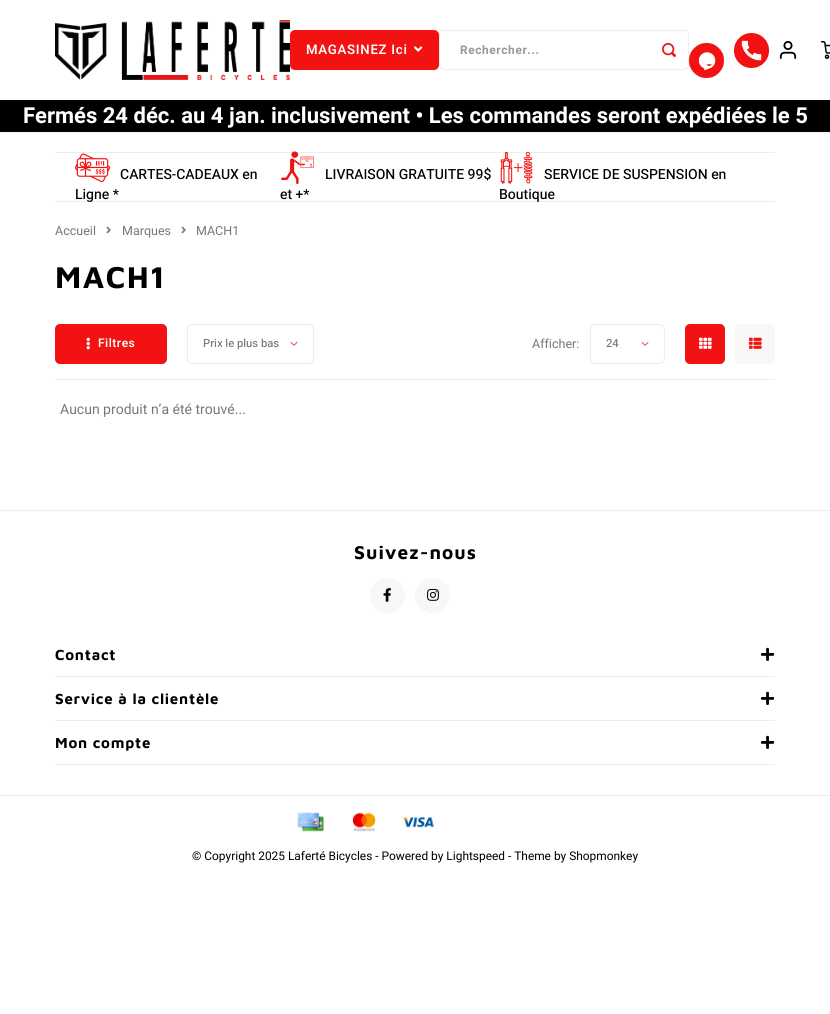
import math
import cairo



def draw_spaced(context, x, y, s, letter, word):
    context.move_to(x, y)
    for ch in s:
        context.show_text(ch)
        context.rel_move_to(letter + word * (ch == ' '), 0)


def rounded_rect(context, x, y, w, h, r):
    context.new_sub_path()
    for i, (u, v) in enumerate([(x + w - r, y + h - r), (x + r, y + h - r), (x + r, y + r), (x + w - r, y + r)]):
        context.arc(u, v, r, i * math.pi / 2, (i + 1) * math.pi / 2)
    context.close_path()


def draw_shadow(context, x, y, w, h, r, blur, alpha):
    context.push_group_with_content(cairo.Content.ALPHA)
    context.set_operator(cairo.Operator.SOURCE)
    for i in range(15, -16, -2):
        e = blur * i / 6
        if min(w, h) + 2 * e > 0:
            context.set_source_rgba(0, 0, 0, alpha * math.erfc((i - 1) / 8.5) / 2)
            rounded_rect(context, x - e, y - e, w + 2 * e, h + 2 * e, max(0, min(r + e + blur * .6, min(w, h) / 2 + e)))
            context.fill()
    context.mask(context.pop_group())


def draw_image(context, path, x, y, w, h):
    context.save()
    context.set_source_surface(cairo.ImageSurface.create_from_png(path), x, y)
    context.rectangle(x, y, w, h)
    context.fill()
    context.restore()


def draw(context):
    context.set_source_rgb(1, 1, 1)
    context.paint()
    context.save()
    context.rectangle(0, 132, 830, 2)
    context.clip()
    context.set_source_rgb(0, 0, 0)
    draw_shadow(context, 0, 1, 830, 132, 0, 2, 0.08)
    context.restore()
    draw_image(context, "images/1.png", 55, 20, 235, 60)
    context.set_source_rgb(243 / 255, 18 / 255, 18 / 255)
    rounded_rect(context, 290, 30, 149, 40, 5)
    context.fill()
    draw_image(context, "images/2.png", 414, 46, 9, 6)
    rounded_rect(context, 439.5, 30.5, 249, 39, 4.5)
    context.set_source_rgb(237 / 255, 237 / 255, 237 / 255)
    context.set_line_width(1)
    context.stroke()
    draw_image(context, "images/3.png", 662, 43, 14, 14)
    draw_image(context, "images/4.png", 689, 43, 35, 35)
    draw_image(context, "images/5.png", 734, 33, 35, 35)
    draw_image(context, "images/6.png", 779, 41, 18, 18)
    draw_image(context, "images/7.png", 821, 41, 9, 18)
    context.set_source_rgb(0, 0, 0)
    context.rectangle(0, 100, 830, 32)
    context.fill()
    context.set_source_rgb(237 / 255, 237 / 255, 237 / 255)
    context.rectangle(55, 152, 720, 1)
    context.fill()
    context.rectangle(55, 201, 720, 1)
    context.fill()
    draw_image(context, "images/8.png", 75, 153, 35, 29)
    draw_image(context, "images/9.png", 281, 151, 33, 34)
    draw_image(context, "images/10.png", 500, 151, 33, 33)
    draw_image(context, "images/11.png", 106, 226, 5, 8)
    draw_image(context, "images/11.png", 181, 226, 5, 8)
    context.rectangle(55, 379, 720, 1)
    context.fill()
    context.set_source_rgb(243 / 255, 18 / 255, 18 / 255)
    rounded_rect(context, 55, 324, 112, 40, 5)
    context.fill()
    draw_image(context, "images/12.png", 86, 337, 4, 13)
    rounded_rect(context, 187.5, 324.5, 126, 39, 4.5)
    context.set_source_rgb(237 / 255, 237 / 255, 237 / 255)
    context.stroke()
    draw_image(context, "images/13.png", 290, 341, 8, 5)
    rounded_rect(context, 590.5, 324.5, 74, 39, 4.5)
    context.stroke()
    draw_image(context, "images/13.png", 641, 341, 8, 5)
    context.set_source_rgb(243 / 255, 18 / 255, 18 / 255)
    rounded_rect(context, 685, 324, 40, 40, 5)
    context.fill()
    draw_image(context, "images/14.png", 699, 337, 13, 12)
    context.set_source_rgb(247 / 255, 247 / 255, 247 / 255)
    rounded_rect(context, 735, 324, 40, 40, 5)
    context.fill()
    draw_image(context, "images/15.png", 749, 337, 13, 12)
    context.set_source_rgb(237 / 255, 237 / 255, 237 / 255)
    context.rectangle(0, 510, 830, 1)
    context.fill()
    context.set_source_rgb(247 / 255, 247 / 255, 247 / 255)
    context.arc(387.5, 595.5, 17.5, 0, 2 * math.pi)
    context.fill()
    draw_image(context, "images/16.png", 383, 588, 8, 14)
    context.arc(432.5, 595.5, 17.5, 0, 2 * math.pi)
    context.fill()
    draw_image(context, "images/17.png", 427, 589, 12, 12)
    context.set_source_rgb(237 / 255, 237 / 255, 237 / 255)
    context.rectangle(55, 676, 720, 1)
    context.fill()
    draw_image(context, "images/18.png", 761, 647, 14, 14)
    context.rectangle(55, 720, 720, 1)
    context.fill()
    draw_image(context, "images/18.png", 761, 691, 14, 14)
    context.rectangle(55, 764, 720, 1)
    context.fill()
    draw_image(context, "images/18.png", 761, 735, 14, 14)
    context.rectangle(0, 795, 830, 1)
    context.fill()
    draw_image(context, "images/19.png", 297, 812, 27, 20)
    draw_image(context, "images/20.png", 352, 812, 24, 20)
    draw_image(context, "images/21.png", 401, 817, 33, 11)
    context.select_font_face("Heebo SemiBold")
    context.set_font_size(13.25)
    context.set_source_rgb(1, 1, 1)
    draw_spaced(context, 306, 54, "MAGASINEZ Ici", 0.7, 0)
    context.select_font_face("Heebo", cairo.FontSlant.NORMAL, cairo.FontWeight.BOLD)
    context.set_font_size(11.9)
    context.set_source_rgb(153 / 255, 153 / 255, 153 / 255)
    draw_spaced(context, 460, 54, "Rechercher...", 0.6, 0)
    context.set_font_size(22)
    context.set_source_rgb(1, 1, 1)
    context.move_to(23, 123)
    context.show_text("Fermés 24 déc. au 4 jan. inclusivement • Les commandes seront expédiées le 5")
    context.select_font_face("Heebo Medium")
    context.set_font_size(14)
    context.set_source_rgb(0, 0, 0)
    context.move_to(120, 179)
    context.show_text("CARTES-CADEAUX en")
    context.move_to(75, 199)
    context.show_text("Ligne *")
    context.move_to(325, 179)
    context.show_text("LIVRAISON GRATUITE 99$")
    context.move_to(280, 199)
    context.show_text("et +*")
    context.move_to(544, 179)
    context.show_text("SERVICE DE SUSPENSION en")
    context.move_to(499, 199)
    context.show_text("Boutique")
    context.select_font_face("Heebo")
    context.set_font_size(12.5)
    context.set_source_rgb(119 / 255, 119 / 255, 119 / 255)
    context.move_to(55, 235)
    context.show_text("Accueil")
    context.move_to(122, 235)
    context.show_text("Marques")
    context.move_to(196, 235)
    context.show_text("MACH1")
    context.select_font_face("Maven Pro", cairo.FontSlant.NORMAL, cairo.FontWeight.BOLD)
    context.set_font_size(31)
    context.set_source_rgb(0, 0, 0)
    draw_spaced(context, 55, 288, "MACH1", 1.5, 0)
    context.select_font_face("Heebo SemiBold")
    context.set_font_size(12)
    context.set_source_rgb(1, 1, 1)
    draw_spaced(context, 98, 347, "Filtres", 0.5, 0)
    context.select_font_face("Heebo Medium")
    context.set_font_size(11.25)
    context.set_source_rgb(119 / 255, 119 / 255, 119 / 255)
    context.move_to(203, 347)
    context.show_text("Prix le plus bas")
    context.select_font_face("Heebo")
    context.set_font_size(12.5)
    context.move_to(532, 348)
    context.show_text("Afficher:")
    context.select_font_face("Heebo Medium")
    context.set_font_size(11.25)
    context.move_to(606, 347)
    context.show_text("24")
    context.select_font_face("Heebo")
    context.set_font_size(14)
    context.move_to(60, 414)
    context.show_text("Aucun produit n’a été trouvé...")
    context.select_font_face("Maven Pro", cairo.FontSlant.NORMAL, cairo.FontWeight.BOLD)
    context.set_font_size(19)
    context.set_source_rgb(0, 0, 0)
    draw_spaced(context, 354, 559, "Suivez-nous", 1, 0)
    context.set_font_size(15)
    draw_spaced(context, 55, 660, "Contact", 0.75, 0)
    draw_spaced(context, 55, 704, "Service à la clientèle", 0.75, 0)
    draw_spaced(context, 55, 748, "Mon compte", 0.75, 0)
    context.select_font_face("Heebo")
    context.set_font_size(11.9)
    context.move_to(192, 860)
    context.show_text("© Copyright 2025 Laferté Bicycles - Powered by Lightspeed - Theme by Shopmonkey")


surface = cairo.ImageSurface(cairo.Format.RGB24, 830, 1014)
context = cairo.Context(surface)
options = cairo.FontOptions()
options.set_hint_metrics(cairo.HintMetrics.OFF)
options.set_hint_style(cairo.HintStyle.NONE)
context.set_font_options(options)
context.set_miter_limit(4)
draw(context)
surface.write_to_png("out.png")
